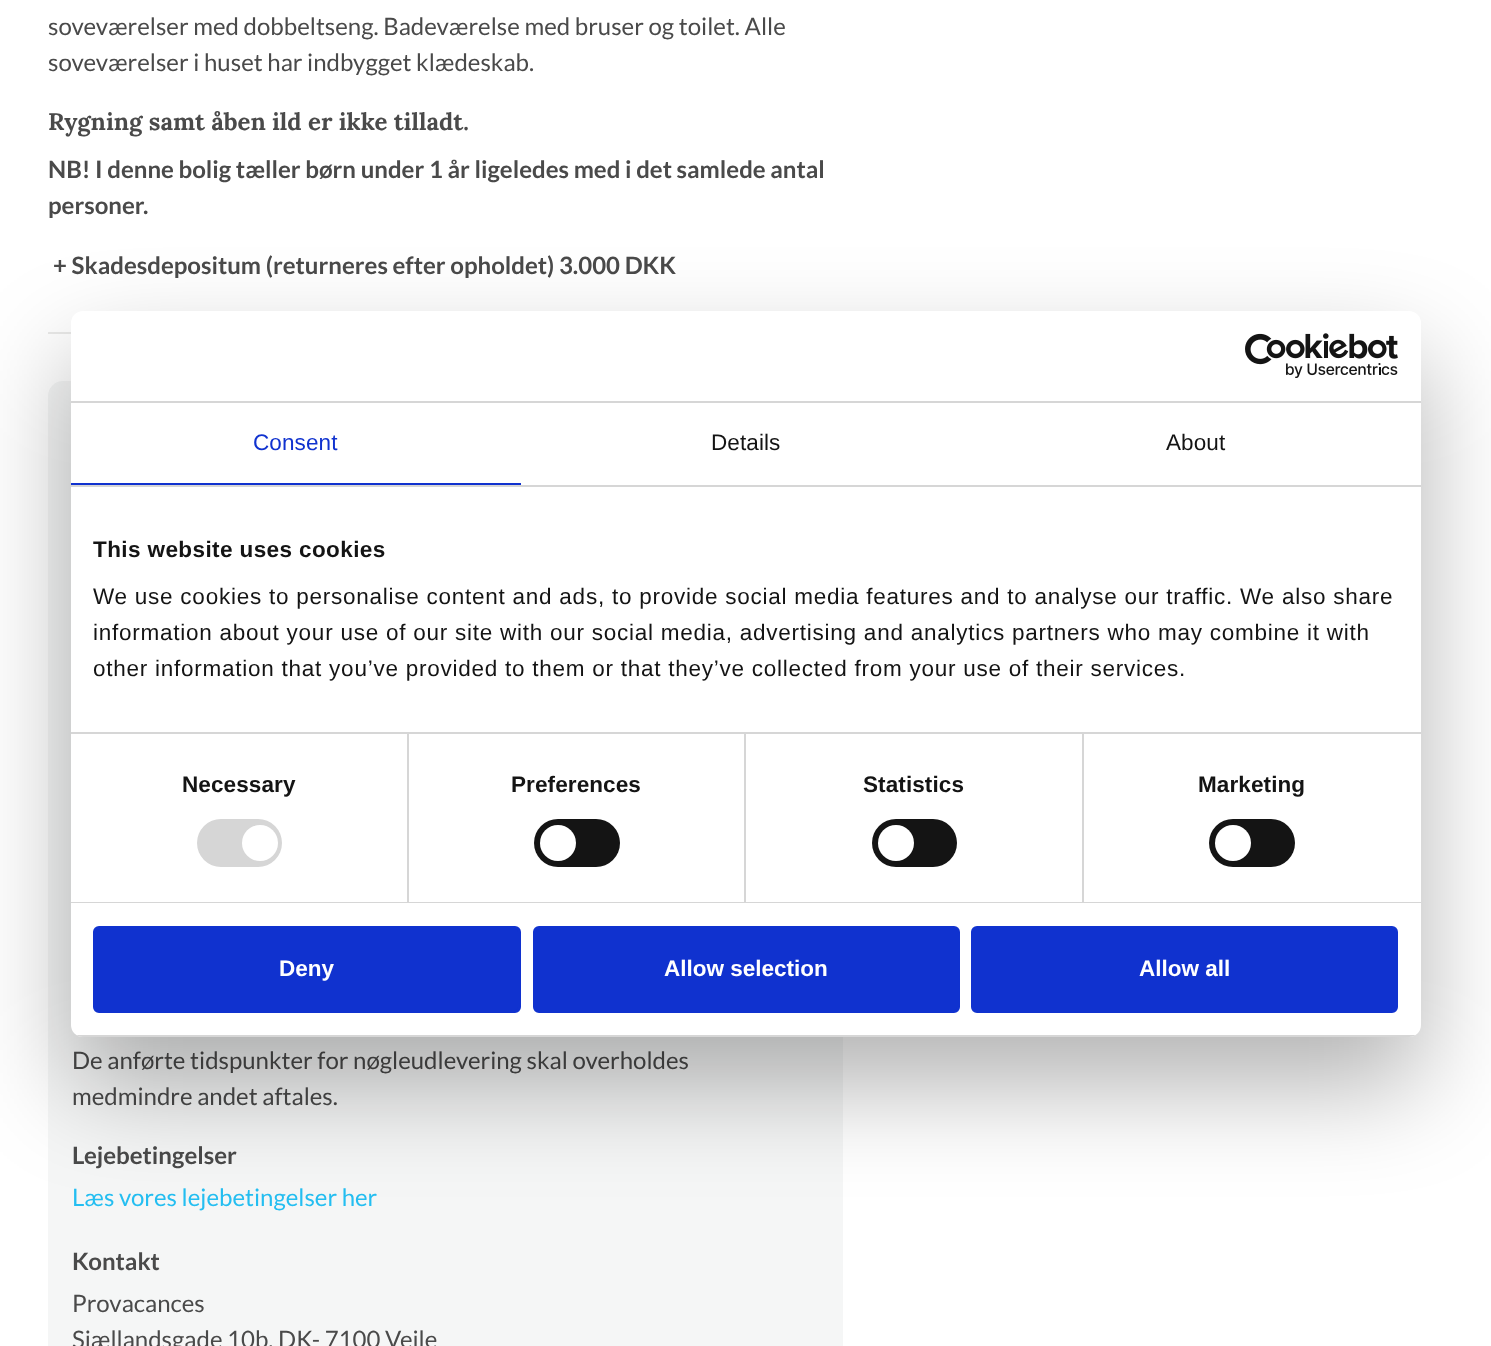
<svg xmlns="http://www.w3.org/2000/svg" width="1491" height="1346">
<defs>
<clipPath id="clip1"><rect x="71" y="311" width="1350" height="726" rx="12"/></clipPath>
</defs>
<rect width="100%" height="100%" fill="#fff"/>
<text x="48" y="35" style="font-family:Lato;font-size:24px;fill:#4a4a4a">soveværelser med dobbeltseng. Badeværelse med bruser og toilet. Alle</text>
<text x="48" y="71" style="font-family:Lato;font-size:24px;fill:#4a4a4a">soveværelser i huset har indbygget klædeskab.</text>
<text x="48" y="130" style="font-family:Lora;font-size:24px;font-weight:bold;fill:#4a4a4a">Rygning samt åben ild er ikke tilladt.</text>
<text x="48" y="178" style="font-family:Lato;font-size:24px;font-weight:bold;fill:#4a4a4a">NB! I denne bolig tæller børn under 1 år ligeledes med i det samlede antal</text>
<text x="48" y="214" style="font-family:Lato;font-size:24px;font-weight:bold;fill:#4a4a4a">personer.</text>
<text x="53" y="274" style="font-family:Lato;font-size:24px;font-weight:bold;fill:#4a4a4a">+ Skadesdepositum (returneres efter opholdet) 3.000 DKK</text>
<rect x="48" y="332" width="23" height="2" fill="#eaeae9"/>
<rect x="48" y="381" width="795" height="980" rx="15" fill="#f5f6f6"/>
<text x="72" y="1069" style="font-family:Lato;font-size:24px;fill:#4a4a4a">De anførte tidspunkter for nøgleudlevering skal overholdes</text>
<text x="72" y="1105" style="font-family:Lato;font-size:24px;fill:#4a4a4a">medmindre andet aftales.</text>
<text x="72" y="1164" style="font-family:Lato;font-size:24px;font-weight:bold;fill:#4a4a4a">Lejebetingelser</text>
<text x="72" y="1206" style="font-family:Lato;font-size:24px;fill:#24bef1">Læs vores lejebetingelser her</text>
<text x="72" y="1270" style="font-family:Lato;font-size:24px;font-weight:bold;fill:#4a4a4a">Kontakt</text>
<text x="72" y="1312" style="font-family:Lato;font-size:24px;fill:#4a4a4a">Provacances</text>
<text x="72" y="1348" style="font-family:Lato;font-size:24px;fill:#4a4a4a">Sjællandsgade 10b, DK- 7100 Vejle</text>
<rect x="71" y="359" width="1350" height="726" rx="12" fill="#0000004d" filter="blur(51px)"/>
<rect x="71" y="311" width="1350" height="726" rx="12" fill="#fff"/>
<rect x="71" y="401" width="1350" height="2" fill="#d6d6d6"/>
<image x="1245" y="333" width="153" height="45" href="media/1.png"/>
<rect x="71" y="485" width="1350" height="2" fill="#d6d6d6"/>
<rect x="71" y="483" width="450" height="2" fill="#1032cf"/>
<text x="253" y="450" style="font-family:Liberation Sans;font-size:22.5px;letter-spacing:0.1px;fill:#1032cf">Consent</text>
<text x="711" y="450" style="font-family:Liberation Sans;font-size:22.5px;letter-spacing:0.1px;fill:#141414">Details</text>
<text x="1166" y="450" style="font-family:Liberation Sans;font-size:22.5px;letter-spacing:0.1px;fill:#141414">About</text>
<rect x="71" y="732" width="1350" height="2" fill="#d6d6d6"/>
<text x="93" y="557" style="font-family:Liberation Sans;font-size:22.5px;font-weight:bold;letter-spacing:0.4px;fill:#141414">This website uses cookies</text>
<text x="93" y="604" style="font-family:Liberation Sans;font-size:22.5px;letter-spacing:0.75px;fill:#141414">We use cookies to personalise content and ads, to provide social media features and to analyse our traffic. We also share</text>
<text x="93" y="640" style="font-family:Liberation Sans;font-size:22.5px;letter-spacing:0.75px;fill:#141414">information about your use of our site with our social media, advertising and analytics partners who may combine it with</text>
<text x="93" y="676" style="font-family:Liberation Sans;font-size:22.5px;letter-spacing:0.75px;fill:#141414">other information that you’ve provided to them or that they’ve collected from your use of their services.</text>
<rect x="71" y="902" width="1350" height="1" fill="#d6d6d6"/>
<rect x="407" y="734" width="2" height="168" fill="#d6d6d6"/>
<text x="182" y="792" style="font-family:Liberation Sans;font-size:22.5px;font-weight:bold;letter-spacing:0.1px;fill:#141414">Necessary</text>
<rect x="197" y="819" width="85" height="48" rx="24" fill="#d6d6d6"/>
<circle cx="260" cy="843" r="18" fill="#fff"/>
<rect x="744" y="734" width="2" height="168" fill="#d6d6d6"/>
<text x="511" y="792" style="font-family:Liberation Sans;font-size:22.5px;font-weight:bold;letter-spacing:0.1px;fill:#141414">Preferences</text>
<rect x="534" y="819" width="86" height="48" rx="24" fill="#141414"/>
<circle cx="558" cy="843" r="18" fill="#fff"/>
<rect x="1082" y="734" width="2" height="168" fill="#d6d6d6"/>
<text x="863" y="792" style="font-family:Liberation Sans;font-size:22.5px;font-weight:bold;letter-spacing:0.1px;fill:#141414">Statistics</text>
<rect x="872" y="819" width="85" height="48" rx="24" fill="#141414"/>
<circle cx="896" cy="843" r="18" fill="#fff"/>
<text x="1198" y="792" style="font-family:Liberation Sans;font-size:22.5px;font-weight:bold;letter-spacing:0.1px;fill:#141414">Marketing</text>
<rect x="1209" y="819" width="86" height="48" rx="24" fill="#141414"/>
<circle cx="1233" cy="843" r="18" fill="#fff"/>
<g clip-path="url(#clip1)">
<rect x="71" y="1035" width="1350" height="2" fill="#d6d6d6"/>
</g>
<rect x="94.5" y="927.5" width="425" height="84" rx="4.5" fill="#1032cf" stroke="#1032cf" stroke-width="3"/>
<text x="279" y="976" style="font-family:Liberation Sans;font-size:22.5px;font-weight:bold;fill:#fff">Deny</text>
<rect x="534.5" y="927.5" width="424" height="84" rx="4.5" fill="#1032cf" stroke="#1032cf" stroke-width="3"/>
<text x="664" y="976" style="font-family:Liberation Sans;font-size:22.5px;font-weight:bold;fill:#fff">Allow selection</text>
<rect x="972.5" y="927.5" width="424" height="84" rx="4.5" fill="#1032cf" stroke="#1032cf" stroke-width="3"/>
<text x="1139" y="976" style="font-family:Liberation Sans;font-size:22.5px;font-weight:bold;fill:#fff">Allow all</text>
</svg>
